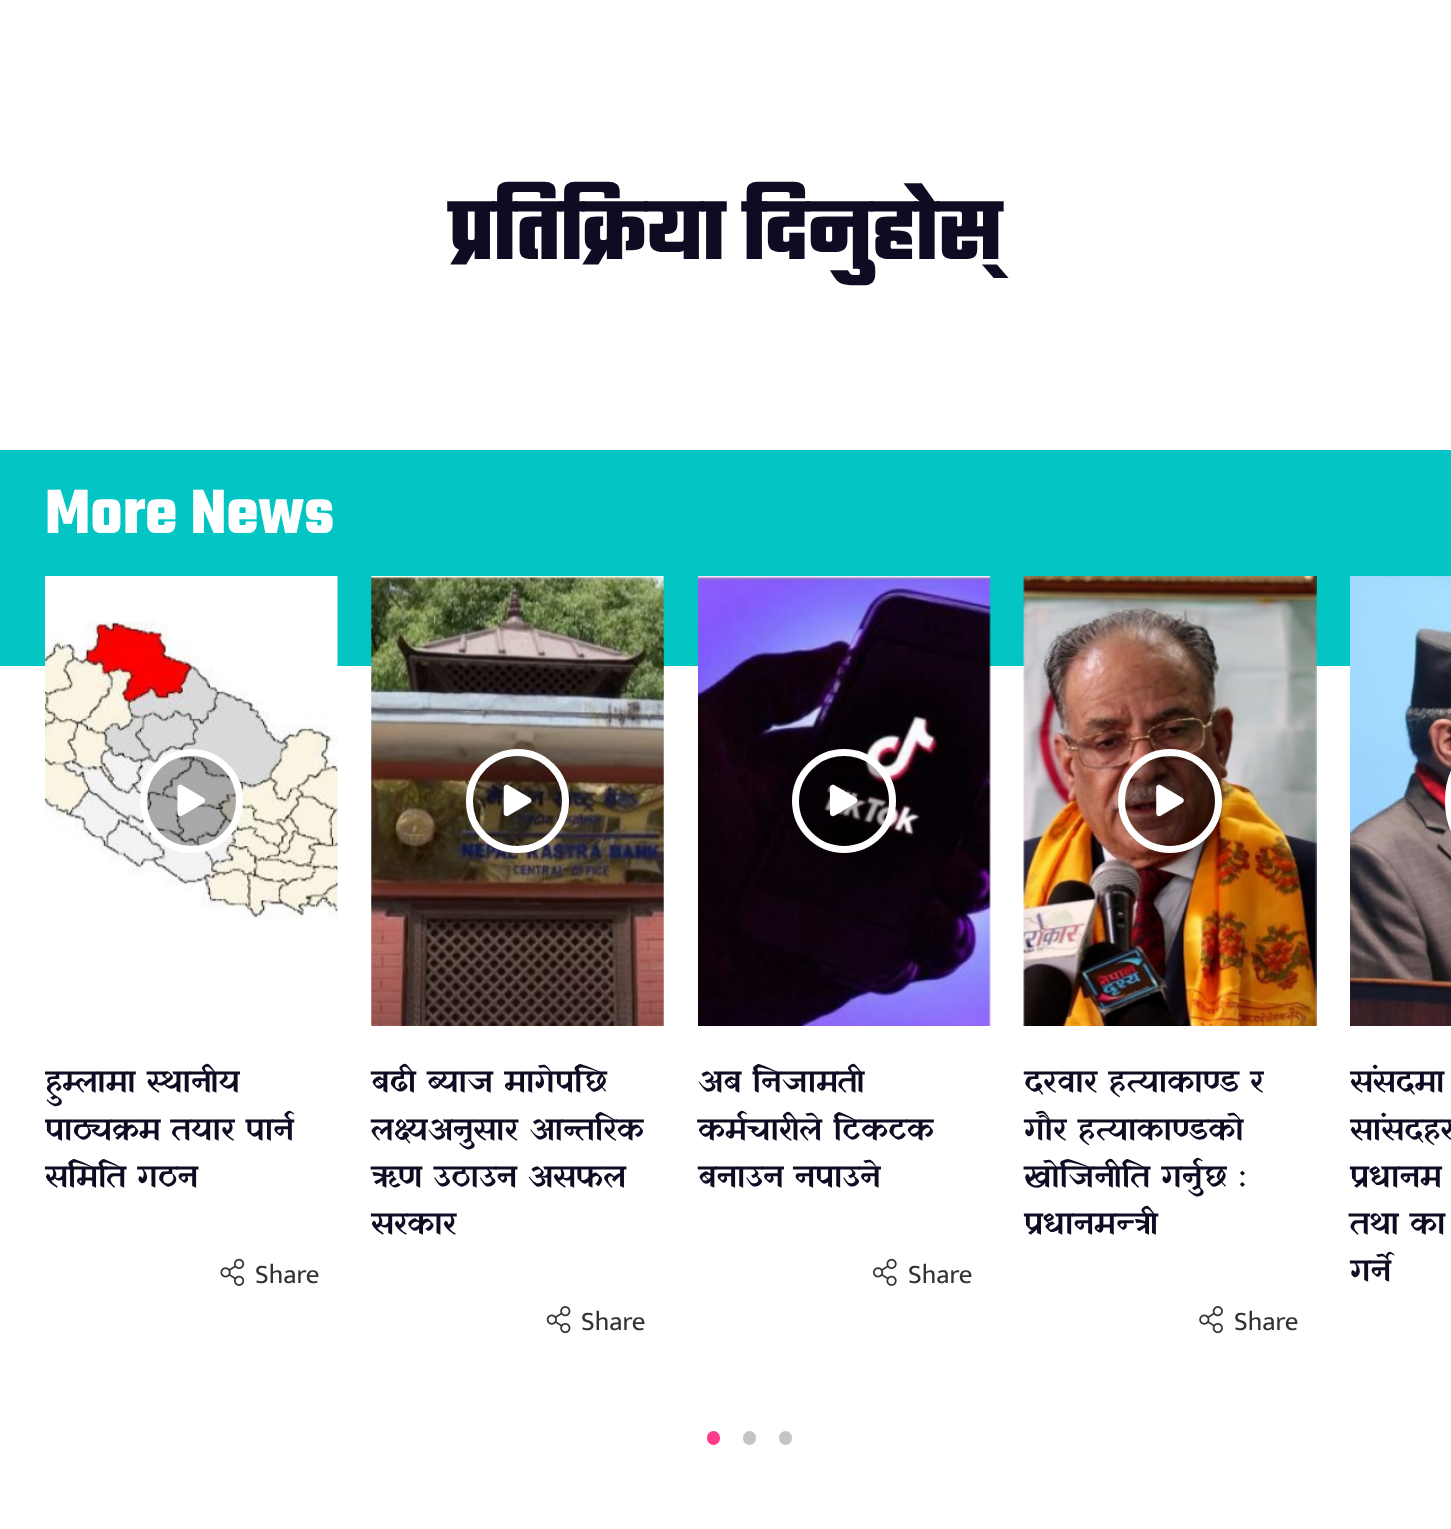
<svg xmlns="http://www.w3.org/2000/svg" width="1451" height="1529">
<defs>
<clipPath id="clip1"><rect x="45" y="576" width="1406" height="833"/></clipPath>
</defs>
<rect width="100%" height="100%" fill="#fff"/>
<text x="449" y="259" style="font-family:Teko;font-size:90px;font-weight:300;fill:#0d0c22">प्रतिक्रिया दिनुहोस्</text>
<rect y="450" width="1451" height="216" fill="#03c5c4"/>
<text x="45" y="533" style="font-family:Teko;font-size:67.5px;font-weight:300;fill:#fff">More News</text>
<image x="45" y="576" width="293" height="343" href="media/1.png"/>
<rect x="143.5" y="752.5" width="96" height="97" rx="48" fill="#0000004d" stroke="#fff" stroke-width="7"/>
<image x="177" y="784" width="28" height="33" href="media/2.png"/>
<g clip-path="url(#clip1)">
<text x="45" y="1091" style="font-family:Yatra One;font-size:31.5px;fill:#0d0c22">हुम्लामा स्थानीय</text>
<text x="45" y="1139" style="font-family:Yatra One;font-size:31.5px;fill:#0d0c22">पाठ्यक्रम तयार पार्न</text>
</g>
<text x="45" y="1186" style="font-family:Yatra One;font-size:31.5px;fill:#0d0c22">समिति गठन</text>
<image x="220" y="1258" width="25" height="28" href="media/3.png"/>
<text x="255" y="1283" style="font-family:Mukta;font-size:27px;fill:#333">Share</text>
<image x="371" y="576" width="293" height="450" href="media/4.png"/>
<rect x="469.5" y="752.5" width="96" height="97" rx="48" fill="#0000004d" stroke="#fff" stroke-width="7"/>
<image x="503" y="784" width="29" height="33" href="media/5.png"/>
<text x="371" y="1091" style="font-family:Yatra One;font-size:31.5px;fill:#0d0c22">बढी ब्याज मागेपछि</text>
<text x="371" y="1139" style="font-family:Yatra One;font-size:31.5px;fill:#0d0c22">लक्ष्यअनुसार आन्तरिक</text>
<text x="371" y="1186" style="font-family:Yatra One;font-size:31.5px;fill:#0d0c22">ऋण उठाउन असफल</text>
<text x="371" y="1233" style="font-family:Yatra One;font-size:31.5px;fill:#0d0c22">सरकार</text>
<image x="546" y="1306" width="25" height="28" href="media/6.png"/>
<text x="581" y="1330" style="font-family:Mukta;font-size:27px;fill:#333">Share</text>
<image x="698" y="576" width="293" height="450" href="media/7.png"/>
<circle cx="844" cy="801" r="48.5" fill="#0000004d" stroke="#fff" stroke-width="7"/>
<image x="829" y="784" width="29" height="33" href="media/8.png"/>
<text x="698" y="1091" style="font-family:Yatra One;font-size:31.5px;fill:#0d0c22">अब निजामती</text>
<text x="698" y="1139" style="font-family:Yatra One;font-size:31.5px;fill:#0d0c22">कर्मचारीले टिकटक</text>
<text x="698" y="1186" style="font-family:Yatra One;font-size:31.5px;fill:#0d0c22">बनाउन नपाउने</text>
<image x="873" y="1258" width="24" height="28" href="media/9.png"/>
<text x="908" y="1283" style="font-family:Mukta;font-size:27px;fill:#333">Share</text>
<image x="1023" y="576" width="294" height="450" href="media/10.png"/>
<circle cx="1170" cy="801" r="48.5" fill="#0000004d" stroke="#fff" stroke-width="7"/>
<image x="1156" y="784" width="28" height="33" href="media/11.png"/>
<text x="1024" y="1091" style="font-family:Yatra One;font-size:31.5px;fill:#0d0c22">दरवार हत्याकाण्ड र</text>
<text x="1024" y="1139" style="font-family:Yatra One;font-size:31.5px;fill:#0d0c22">गौर हत्याकाण्डको</text>
<text x="1024" y="1186" style="font-family:Yatra One;font-size:31.5px;fill:#0d0c22">खोजिनीति गर्नुछ :</text>
<text x="1024" y="1233" style="font-family:Yatra One;font-size:31.5px;fill:#0d0c22">प्रधानमन्त्री</text>
<image x="1199" y="1306" width="24" height="28" href="media/12.png"/>
<text x="1234" y="1330" style="font-family:Mukta;font-size:27px;fill:#333">Share</text>
<image x="1350" y="576" width="101" height="450" href="media/13.png"/>
<rect x="1448.5" y="752.5" width="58" height="97" rx="48" fill="none" stroke="#fff" stroke-width="7"/>
<text x="1350" y="1091" style="font-family:Yatra One;font-size:31.5px;fill:#0d0c22">संसदमा</text>
<text x="1350" y="1139" style="font-family:Yatra One;font-size:31.5px;fill:#0d0c22">सांसदहर</text>
<text x="1350" y="1186" style="font-family:Yatra One;font-size:31.5px;fill:#0d0c22">प्रधानम</text>
<text x="1350" y="1233" style="font-family:Yatra One;font-size:31.5px;fill:#0d0c22">तथा का</text>
<text x="1350" y="1280" style="font-family:Yatra One;font-size:31.5px;fill:#0d0c22">गर्ने</text>
<rect x="707" y="1431" width="13" height="14" rx="6.5" fill="#ff3a8a"/>
<rect x="743" y="1431" width="13" height="14" rx="6.5" fill="#c4c4c4"/>
<rect x="779" y="1431" width="13" height="14" rx="6.5" fill="#c4c4c4"/>
</svg>
